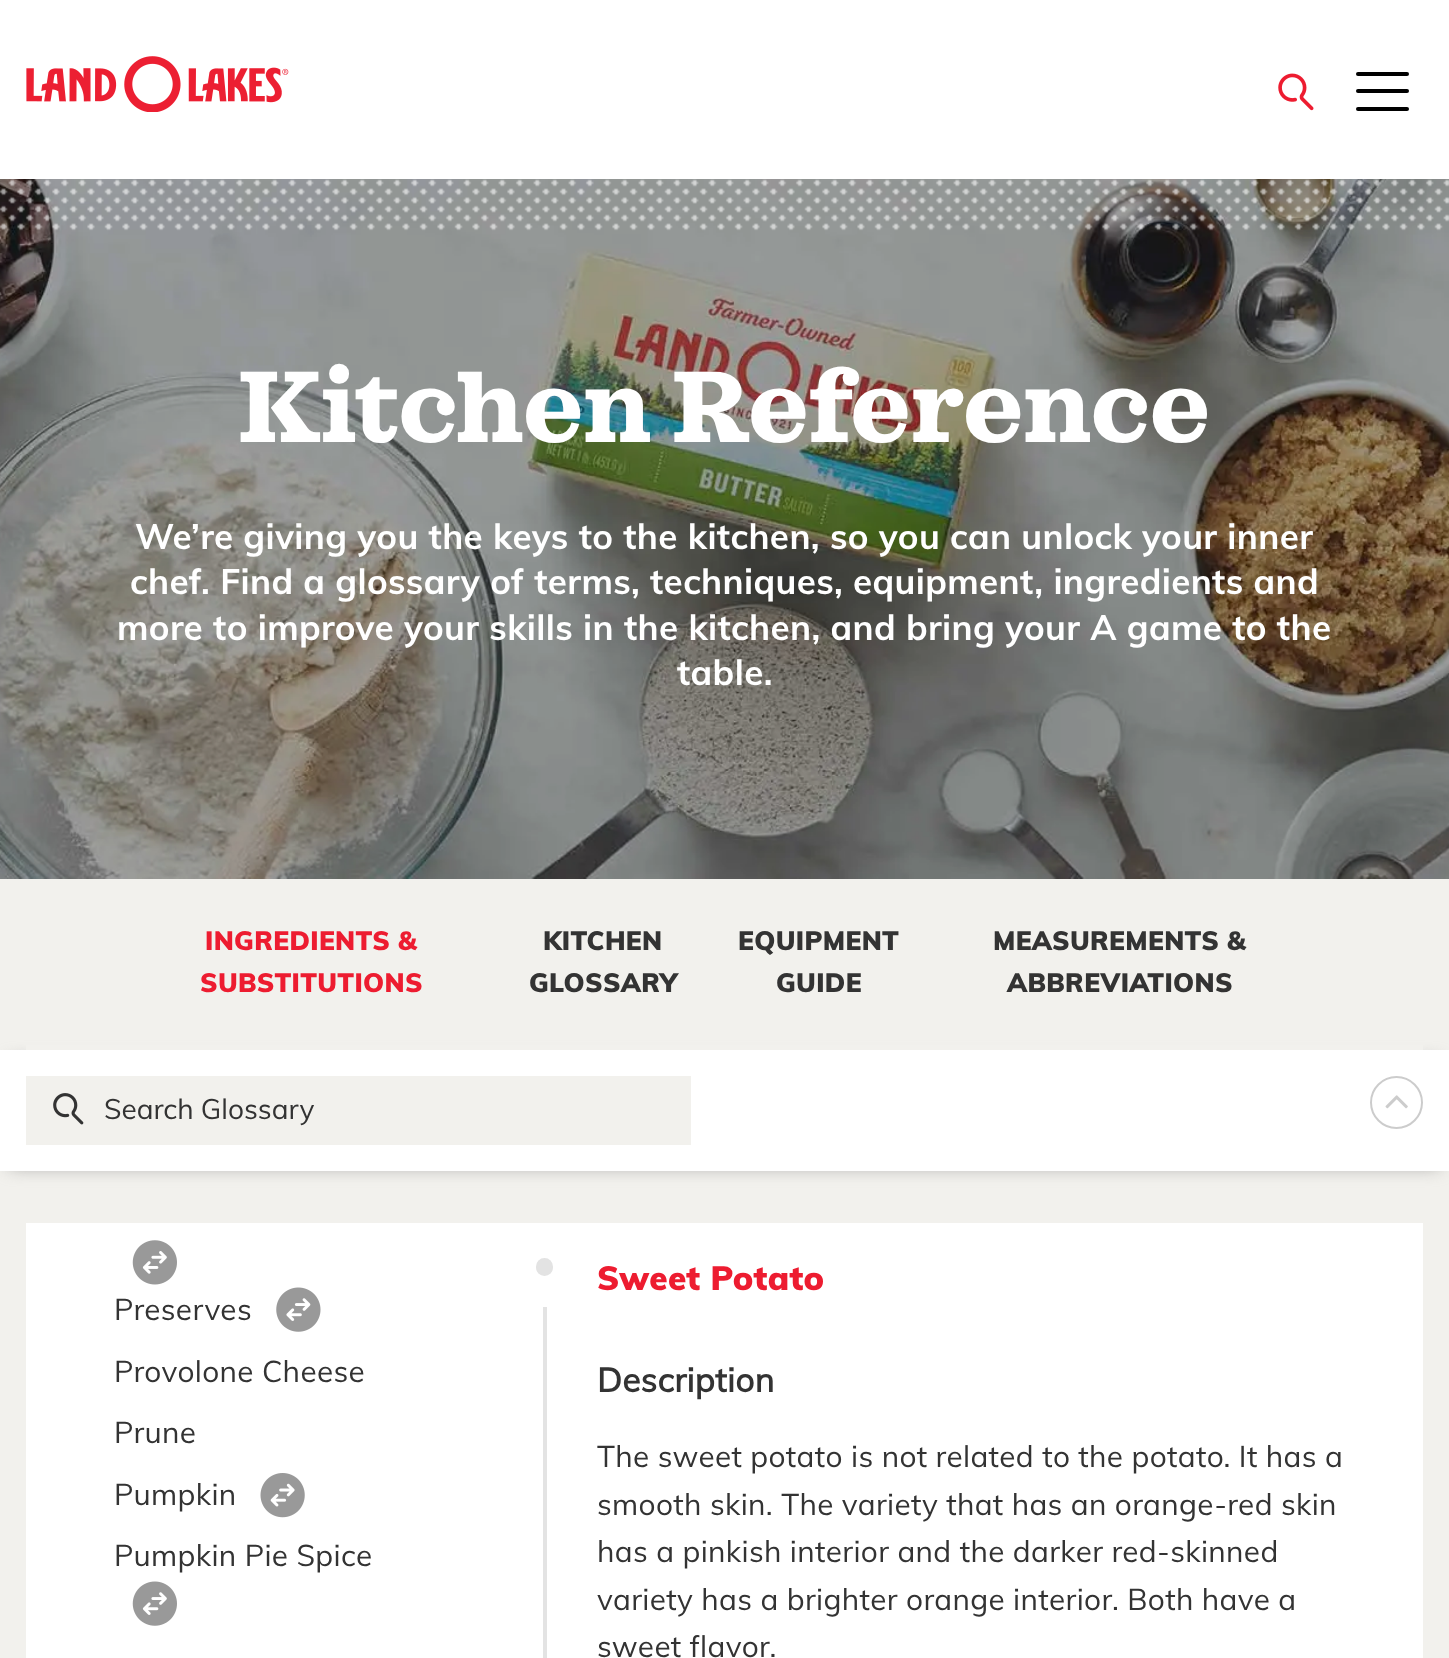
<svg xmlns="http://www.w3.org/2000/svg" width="1449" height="1658">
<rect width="100%" height="100%" fill="#f2f1ed"/>
<rect width="1449" height="179" fill="#fff"/>
<image x="26" y="56" width="263" height="56" href="media/1.png"/>
<image x="1278" y="73" width="36" height="38" href="media/2.png"/>
<rect x="1356" y="72" width="53" height="4" rx="2" fill="#000"/>
<rect x="1356" y="89" width="53" height="4" rx="2" fill="#000"/>
<rect x="1356" y="107" width="53" height="4" rx="2" fill="#000"/>
<image x="0" y="179" width="1449" height="700" href="media/3.png"/>
<image x="0" y="179" width="1449" height="52" href="media/4.png"/>
<text x="238" y="442" style="font-family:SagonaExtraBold;font-size:103.25px;letter-spacing:0.35px;fill:#fff">Kitchen Reference</text>
<text x="135" y="549" style="font-family:'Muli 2';font-size:35px;font-weight:bold;letter-spacing:0.35px;fill:#fff">We’re giving you the keys to the kitchen, so you can unlock your inner</text>
<text x="130" y="594" style="font-family:'Muli 2';font-size:35px;font-weight:bold;letter-spacing:0.35px;fill:#fff">chef. Find a glossary of terms, techniques, equipment, ingredients and</text>
<text x="117" y="640" style="font-family:'Muli 2';font-size:35px;font-weight:bold;letter-spacing:0.35px;fill:#fff">more to improve your skills in the kitchen, and bring your A game to the</text>
<text x="677" y="685" style="font-family:'Muli 2';font-size:35px;font-weight:bold;letter-spacing:0.35px;fill:#fff">table.</text>
<rect x="9" y="1062" width="1431" height="104" fill="#999" filter="blur(9px)"/>
<rect x="26" y="1045" width="1397" height="5" fill="#f2f1ed"/>
<text x="205" y="950" style="font-family:Muli;font-size:26.25px;font-weight:900;letter-spacing:0.35px;fill:#ed1c30">INGREDIENTS &amp;</text>
<text x="200" y="992" style="font-family:Muli;font-size:26.25px;font-weight:900;letter-spacing:0.35px;fill:#ed1c30">SUBSTITUTIONS</text>
<text x="543" y="950" style="font-family:Muli;font-size:26.25px;font-weight:900;letter-spacing:0.35px;fill:#333">KITCHEN</text>
<text x="529" y="992" style="font-family:Muli;font-size:26.25px;font-weight:900;letter-spacing:0.35px;fill:#333">GLOSSARY</text>
<text x="738" y="950" style="font-family:Muli;font-size:26.25px;font-weight:900;letter-spacing:0.35px;fill:#333">EQUIPMENT</text>
<text x="776" y="992" style="font-family:Muli;font-size:26.25px;font-weight:900;letter-spacing:0.35px;fill:#333">GUIDE</text>
<text x="993" y="950" style="font-family:Muli;font-size:26.25px;font-weight:900;letter-spacing:0.35px;fill:#333">MEASUREMENTS &amp;</text>
<text x="1007" y="992" style="font-family:Muli;font-size:26.25px;font-weight:900;letter-spacing:0.35px;fill:#333">ABBREVIATIONS</text>
<rect y="1050" width="1449" height="121" fill="#fff"/>
<rect x="26" y="1076" width="665" height="69" fill="#f2f1ed"/>
<image x="53" y="1093" width="31" height="32" href="media/5.png"/>
<text x="104" y="1119" style="font-family:Muli;font-size:28px;fill:#333">Search Glossary</text>
<circle cx="1396.5" cy="1102.5" r="25.5" fill="none" stroke="#ccc" stroke-width="2"/>
<image x="1385" y="1095" width="23" height="14" href="media/6.png"/>
<rect x="26" y="1223" width="1397" height="435" fill="#fff"/>
<image x="132" y="1240" width="45" height="45" href="media/7.png"/>
<text x="114" y="1320" style="font-family:Muli;font-size:29.75px;letter-spacing:0.35px;fill:#333">Preserves</text>
<image x="276" y="1287" width="45" height="45" href="media/8.png"/>
<text x="114" y="1382" style="font-family:Muli;font-size:29.75px;letter-spacing:0.35px;fill:#333">Provolone Cheese</text>
<text x="114" y="1443" style="font-family:Muli;font-size:29.75px;letter-spacing:0.35px;fill:#333">Prune</text>
<text x="114" y="1505" style="font-family:Muli;font-size:29.75px;letter-spacing:0.35px;fill:#333">Pumpkin</text>
<image x="260" y="1473" width="45" height="45" href="media/9.png"/>
<text x="114" y="1566" style="font-family:Muli;font-size:29.75px;letter-spacing:0.35px;fill:#333">Pumpkin Pie Spice</text>
<image x="132" y="1581" width="45" height="45" href="media/10.png"/>
<rect x="536" y="1258" width="17" height="18" rx="8.5" fill="#e3e3e3"/>
<text x="597" y="1290" style="font-family:Muli;font-size:33.25px;font-weight:900;letter-spacing:0.35px;fill:#ed1c30">Sweet Potato</text>
<rect x="543" y="1307" width="4" height="351" fill="#e3e3e3"/>
<text x="597" y="1392" style="font-family:Muli;font-size:33.25px;font-weight:bold;letter-spacing:0.35px;fill:#333">Description</text>
<text x="597" y="1467" style="font-family:Muli;font-size:29.75px;letter-spacing:0.35px;fill:#333">The sweet potato is not related to the potato. It has a</text>
<text x="597" y="1515" style="font-family:Muli;font-size:29.75px;letter-spacing:0.35px;fill:#333">smooth skin. The variety that has an orange-red skin</text>
<text x="597" y="1562" style="font-family:Muli;font-size:29.75px;letter-spacing:0.35px;fill:#333">has a pinkish interior and the darker red-skinned</text>
<text x="597" y="1610" style="font-family:Muli;font-size:29.75px;letter-spacing:0.35px;fill:#333">variety has a brighter orange interior. Both have a</text>
<text x="597" y="1657" style="font-family:Muli;font-size:29.75px;letter-spacing:0.35px;fill:#333">sweet flavor.</text>
</svg>
